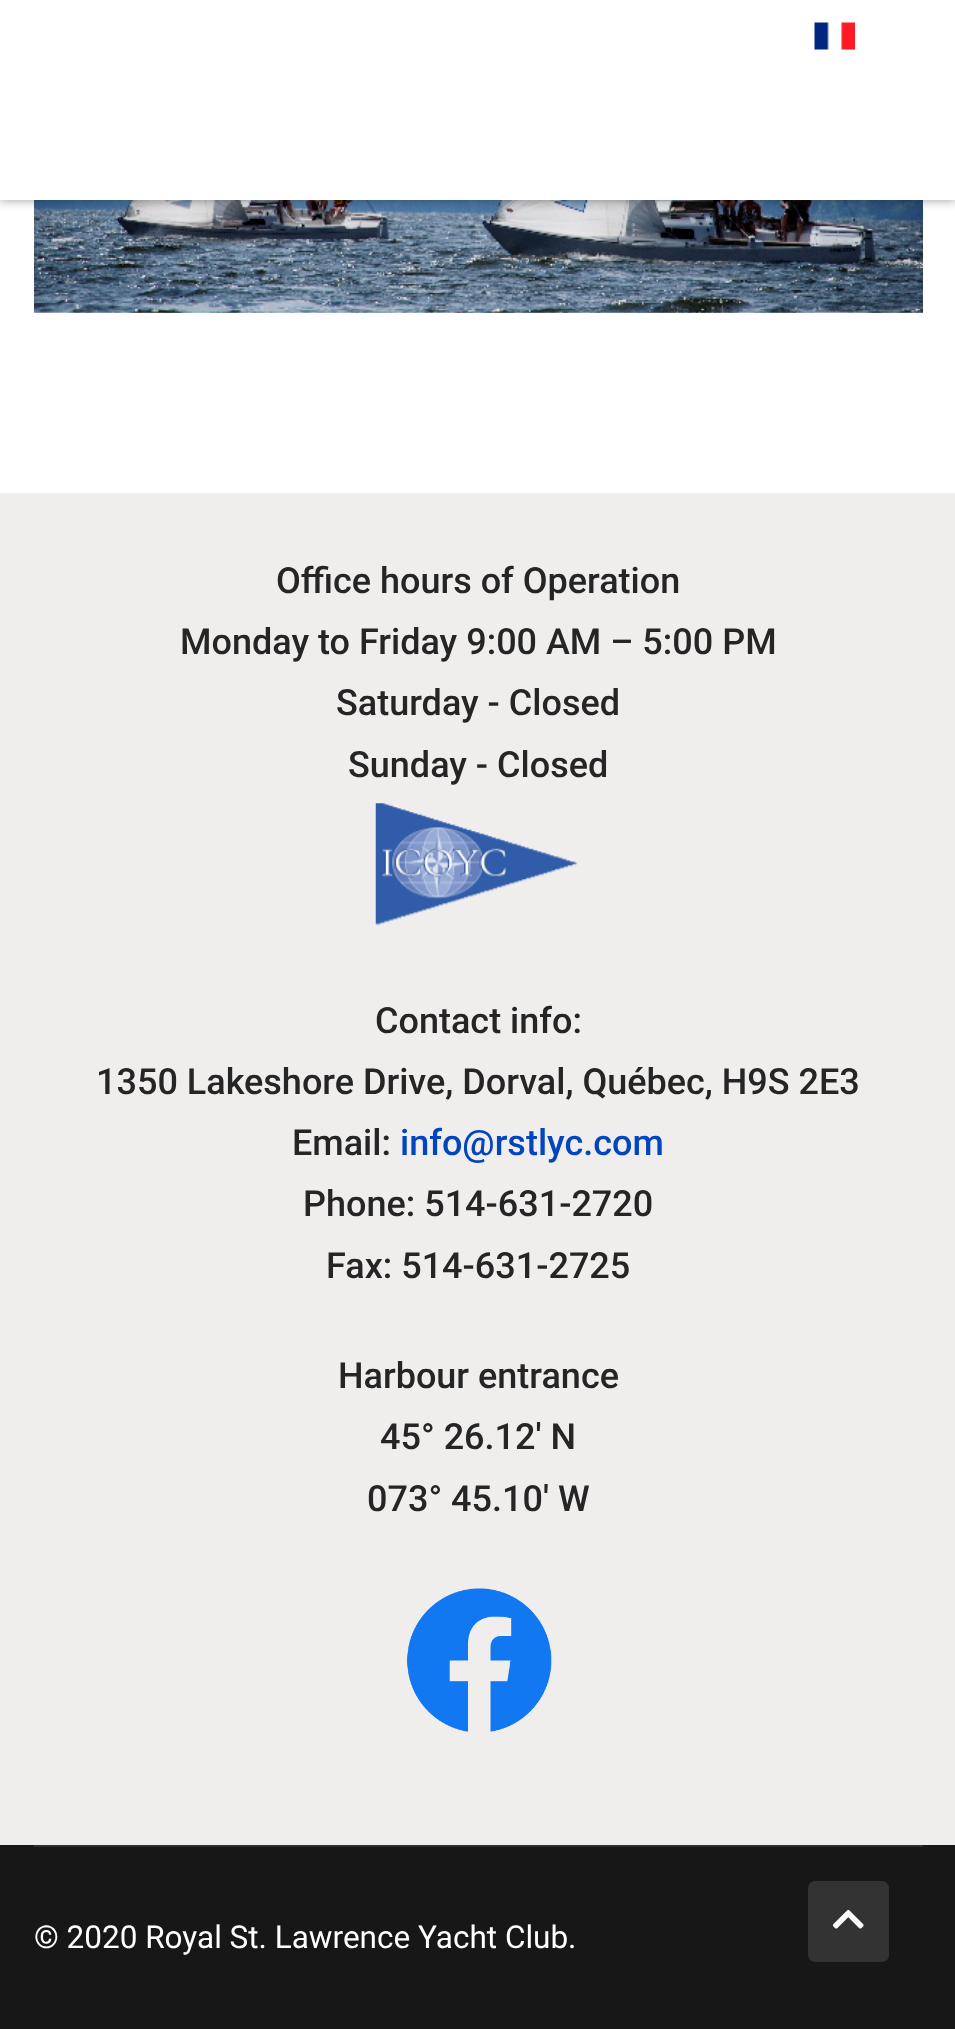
<svg xmlns="http://www.w3.org/2000/svg" width="955" height="2029">
<rect width="100%" height="100%" fill="#fff"/>
<image x="34" y="200" width="889" height="113" href="media/2.png"/>
<rect width="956" height="200" fill="#00000066" filter="blur(5.5px)"/>
<rect width="955" height="200" fill="#fff"/>
<image x="814" y="22" width="41" height="28" href="media/1.png"/>
<rect y="493" width="955" height="1352" fill="#f0eded"/>
<text x="276" y="593" style="font-family:Roboto;font-size:36px;font-weight:500;fill:#252525">Office hours of Operation</text>
<text x="180" y="654" style="font-family:Roboto;font-size:36px;font-weight:500;fill:#252525">Monday to Friday 9:00 AM – 5:00 PM</text>
<text x="336" y="715" style="font-family:Roboto;font-size:36px;font-weight:500;fill:#252525">Saturday - Closed</text>
<text x="348" y="777" style="font-family:Roboto;font-size:36px;font-weight:500;fill:#252525">Sunday - Closed</text>
<image x="375" y="803" width="202" height="122" href="media/3.png"/>
<text x="375" y="1033" style="font-family:Roboto;font-size:36px;font-weight:500;fill:#252525">Contact info:</text>
<text x="96" y="1094" style="font-family:Roboto;font-size:36px;font-weight:500;fill:#252525">1350 Lakeshore Drive, Dorval, Québec, H9S 2E3</text>
<text x="292" y="1155" style="font-family:Roboto;font-size:36px;font-weight:500;fill:#252525">Email:</text>
<text x="400" y="1155" style="font-family:Roboto;font-size:36px;font-weight:500;fill:#0345bf">info@rstlyc.com</text>
<text x="303" y="1216" style="font-family:Roboto;font-size:36px;font-weight:500;fill:#252525">Phone: 514-631-2720</text>
<text x="326" y="1278" style="font-family:Roboto;font-size:36px;font-weight:500;fill:#252525">Fax: 514-631-2725</text>
<text x="338" y="1388" style="font-family:Roboto;font-size:36px;font-weight:500;fill:#252525">Harbour entrance</text>
<text x="380" y="1449" style="font-family:Roboto;font-size:36px;font-weight:500;fill:#252525">45° 26.12' N</text>
<text x="367" y="1511" style="font-family:Roboto;font-size:36px;font-weight:500;fill:#252525">073° 45.10' W</text>
<image x="407" y="1588" width="145" height="144" href="media/4.png"/>
<rect y="1845" width="955" height="184" fill="#171717"/>
<rect x="34" y="1845" width="889" height="2" fill="#2e2e2e"/>
<text x="34" y="1948" style="font-family:Roboto;font-size:31.5px;fill:#fff">© 2020 Royal St. Lawrence Yacht Club.</text>
<rect x="808" y="1881" width="81" height="81" rx="7" fill="#333"/>
<image x="832" y="1909" width="32" height="20" href="media/5.png"/>
</svg>
